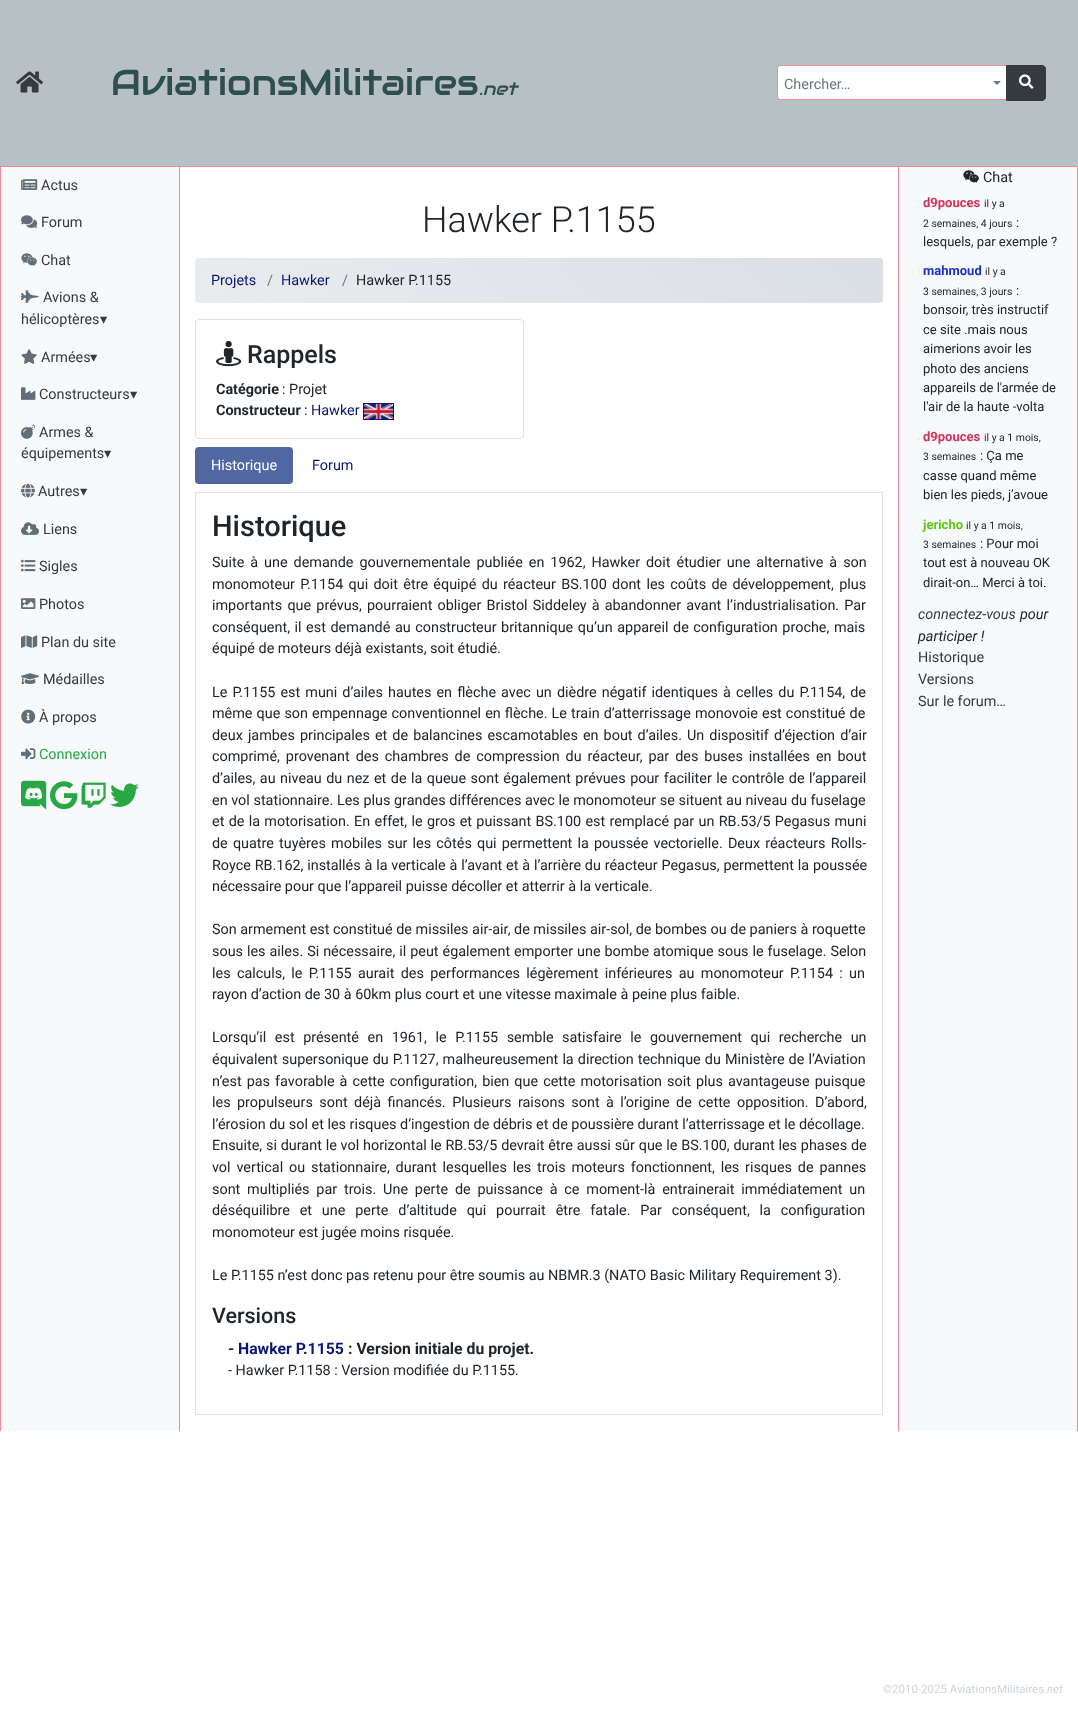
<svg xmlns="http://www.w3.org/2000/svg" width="1078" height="1714">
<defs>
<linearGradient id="g1" gradientUnits="userSpaceOnUse" x1="356" y1="464" x2="722" y2="97"><stop offset="0" stop-color="#e9ecef"/><stop offset="1" stop-color="#dadfe4"/></linearGradient>
</defs>
<rect width="100%" height="100%" fill="#fff"/>
<rect width="1078" height="166" fill="#b7c0c4"/>
<rect y="166" width="1078" height="1" fill="#eb8c95"/>
<image x="16" y="71" width="27" height="22" href="media/1.png"/>
<text x="111" y="95" style="font-family:Audiowide;font-size:36px;fill:#2f4f4f">AviationsMilitaires</text>
<text x="479" y="95" style="font-family:Audiowide;font-size:18px;font-style:italic;fill:#2f4f4f">.net</text>
<path d="M781 65.5h225.5v34h-225.5c-2 0-3.5-1.5-3.5-3.5v-27c0-2 1.5-3.5 3.5-3.5z" fill="#fff" stroke="#eb8c95"/>
<text x="784" y="89" style="font-family:Roboto;font-size:14.4px;fill:#6c757d">Chercher…</text>
<path d="M993 81h8l-4 4z" fill="#6c757d"/>
<path d="M1006.5 65.5h35.5c2 0 3.5 1.5 3.5 3.5v28c0 2-1.5 3.5-3.5 3.5h-35.5z" fill="#343a40" stroke="#343a40"/>
<image x="1019" y="74" width="15" height="15" href="media/2.png"/>
<rect x="1" y="167" width="178" height="1264" fill="#f8f9fa"/>
<rect x="179" y="167" width="1" height="1264" fill="#eb8c95"/>
<rect y="167" width="1" height="1264" fill="#eb8c95"/>
<image x="21" y="179" width="17" height="11" href="media/3.png"/>
<text x="41" y="190" style="font-family:Roboto;font-size:14.4px;fill:#343a40">Actus</text>
<image x="21" y="215" width="17" height="13" href="media/4.png"/>
<text x="41" y="227" style="font-family:Roboto;font-size:14.4px;fill:#343a40">Forum</text>
<image x="21" y="253" width="16" height="13" href="media/5.png"/>
<text x="41" y="265" style="font-family:Roboto;font-size:14.4px;fill:#343a40">Chat</text>
<image x="21" y="290" width="18" height="13" href="media/6.png"/>
<text x="43" y="302" style="font-family:Roboto;font-size:14.4px;fill:#343a40">Avions &amp;</text>
<text x="21" y="324" style="font-family:Roboto;font-size:14.4px;fill:#343a40">hélicoptères</text>
<text x="100" y="324" style="font-family:DejaVu Sans;font-size:14.4px;fill:#343a40">▾</text>
<image x="21" y="349" width="16" height="15" href="media/7.png"/>
<text x="41" y="362" style="font-family:Roboto;font-size:14.4px;fill:#343a40">Armées</text>
<text x="90" y="362" style="font-family:DejaVu Sans;font-size:14.4px;fill:#343a40">▾</text>
<image x="21" y="387" width="15" height="13" href="media/8.png"/>
<text x="39" y="399" style="font-family:Roboto;font-size:14.4px;fill:#343a40">Constructeurs</text>
<text x="130" y="399" style="font-family:DejaVu Sans;font-size:14.4px;fill:#343a40">▾</text>
<image x="21" y="424" width="15" height="15" href="media/9.png"/>
<text x="39" y="437" style="font-family:Roboto;font-size:14.4px;fill:#343a40">Armes &amp;</text>
<text x="21" y="458" style="font-family:Roboto;font-size:14.4px;fill:#343a40">équipements</text>
<text x="104" y="458" style="font-family:DejaVu Sans;font-size:14.4px;fill:#343a40">▾</text>
<image x="21" y="483" width="14" height="15" href="media/10.png"/>
<text x="38" y="496" style="font-family:Roboto;font-size:14.4px;fill:#343a40">Autres</text>
<text x="80" y="496" style="font-family:DejaVu Sans;font-size:14.4px;fill:#343a40">▾</text>
<image x="21" y="522" width="18" height="13" href="media/11.png"/>
<text x="43" y="534" style="font-family:Roboto;font-size:14.4px;fill:#343a40">Liens</text>
<image x="21" y="559" width="15" height="13" href="media/12.png"/>
<text x="39" y="571" style="font-family:Roboto;font-size:14.4px;fill:#343a40">Sigles</text>
<image x="21" y="598" width="15" height="11" href="media/13.png"/>
<text x="39" y="609" style="font-family:Roboto;font-size:14.4px;fill:#343a40">Photos</text>
<image x="21" y="635" width="17" height="13" href="media/14.png"/>
<text x="41" y="647" style="font-family:Roboto;font-size:14.4px;fill:#343a40">Plan du site</text>
<image x="21" y="673" width="18" height="11" href="media/15.png"/>
<text x="43" y="684" style="font-family:Roboto;font-size:14.4px;fill:#343a40">Médailles</text>
<image x="21" y="709" width="15" height="15" href="media/16.png"/>
<text x="39" y="722" style="font-family:Roboto;font-size:14.4px;fill:#343a40">À propos</text>
<image x="21" y="748" width="15" height="12" href="media/17.png"/>
<text x="39" y="759" style="font-family:Roboto;font-size:14.4px;fill:#28a745">Connexion</text>
<image x="21" y="780" width="26" height="30" href="media/18.png"/>
<image x="50" y="781" width="28" height="29" href="media/19.png"/>
<image x="81" y="782" width="25" height="26" href="media/20.png"/>
<image x="110" y="783" width="29" height="24" href="media/21.png"/>
<text x="422" y="232" style="font-family:Roboto;font-size:36px;font-weight:300;fill:#212529">Hawker P.1155</text>
<rect x="195" y="258" width="688" height="45" rx="4" fill="url(#g1)"/>
<text x="211" y="285" style="font-family:Roboto;font-size:14.4px;fill:#0c1673">Projets</text>
<text x="267" y="285" style="font-family:Roboto;font-size:14.4px;fill:#6c757d">/</text>
<text x="281" y="285" style="font-family:Roboto;font-size:14.4px;fill:#0c1673">Hawker</text>
<text x="342" y="285" style="font-family:Roboto;font-size:14.4px;fill:#6c757d">/</text>
<text x="356" y="285" style="font-family:Roboto;font-size:14.4px;fill:#212529">Hawker P.1155</text>
<rect x="195.5" y="319.5" width="328" height="119" rx="3.5" fill="none" stroke="#dfdfdf"/>
<image x="216" y="341" width="26" height="26" href="media/22.png"/>
<text x="247" y="363" style="font-family:Roboto;font-size:25px;font-weight:500;fill:#212529">Rappels</text>
<text x="216" y="394" style="font-family:Roboto;font-size:14.4px;font-weight:bold;fill:#212529">Catégorie</text>
<text x="282" y="394" style="font-family:Roboto;font-size:14.4px;fill:#212529">: Projet</text>
<text x="216" y="415" style="font-family:Roboto;font-size:14.4px;font-weight:bold;fill:#212529">Constructeur</text>
<text x="311" y="415" style="font-family:Roboto;font-size:14.4px;fill:#0c1673">Hawker</text>
<rect x="363.5" y="403.5" width="30" height="16" fill="none" stroke="#0c1673"/>
<text x="304" y="415" style="font-family:Roboto;font-size:14.4px;fill:#212529">:</text>
<image x="364" y="404" width="29" height="15" href="media/23.png"/>
<rect x="195" y="447" width="98" height="37" rx="4" fill="#5167a1"/>
<text x="211" y="470" style="font-family:Roboto;font-size:14.4px;fill:#fff">Historique</text>
<text x="312" y="470" style="font-family:Roboto;font-size:14.4px;fill:#0c1673">Forum</text>
<rect x="195.5" y="492.5" width="687" height="922" fill="none" stroke="#dee2e6"/>
<text x="212" y="536" style="font-family:Roboto;font-size:29px;font-weight:500;fill:#212529">Historique</text>
<text x="212" y="567" word-spacing="2.4" style="font-family:Roboto;font-size:14.4px;fill:#212529">Suite à une demande gouvernementale publiée en 1962, Hawker doit étudier une alternative à son</text>
<text x="212" y="589" word-spacing="1.75" style="font-family:Roboto;font-size:14.4px;fill:#212529">monomoteur P.1154 qui doit être équipé du réacteur BS.100 dont les coûts de développement, plus</text>
<text x="212" y="610" word-spacing="1.6" style="font-family:Roboto;font-size:14.4px;fill:#212529">importants que prévus, pourraient obliger Bristol Siddeley à abandonner avant l’industrialisation. Par</text>
<text x="212" y="632" word-spacing="1" style="font-family:Roboto;font-size:14.4px;fill:#212529">conséquent, il est demandé au constructeur britannique qu’un appareil de configuration proche, mais</text>
<text x="212" y="653" style="font-family:Roboto;font-size:14.4px;fill:#212529">équipé de moteurs déjà existants, soit étudié.</text>
<text x="212" y="697" word-spacing="1.5" style="font-family:Roboto;font-size:14.4px;fill:#212529">Le P.1155 est muni d’ailes hautes en flèche avec un dièdre négatif identiques à celles du P.1154, de</text>
<text x="212" y="718" word-spacing="0.5" style="font-family:Roboto;font-size:14.4px;fill:#212529">même que son empennage conventionnel en flèche. Le train d’atterrissage monovoie est constitué de</text>
<text x="212" y="740" word-spacing="1.5" style="font-family:Roboto;font-size:14.4px;fill:#212529">deux jambes principales et de balancines escamotables en bout d’ailes. Un dispositif d’éjection d’air</text>
<text x="212" y="761" word-spacing="2.4" style="font-family:Roboto;font-size:14.4px;fill:#212529">comprimé, provenant des chambres de compression du réacteur, par des buses installées en bout</text>
<text x="212" y="783" word-spacing="0.9" style="font-family:Roboto;font-size:14.4px;fill:#212529">d’ailes, au niveau du nez et de la queue sont également prévues pour faciliter le contrôle de l’appareil</text>
<text x="212" y="805" word-spacing="0.1" style="font-family:Roboto;font-size:14.4px;fill:#212529">en vol stationnaire. Les plus grandes différences avec le monomoteur se situent au niveau du fuselage</text>
<text x="212" y="826" word-spacing="0.75" style="font-family:Roboto;font-size:14.4px;fill:#212529">et de la motorisation. En effet, le gros et puissant BS.100 est remplacé par un RB.53/5 Pegasus muni</text>
<text x="212" y="848" word-spacing="1.6" style="font-family:Roboto;font-size:14.4px;fill:#212529">de quatre tuyères mobiles sur les côtés qui permettent la poussée vectorielle. Deux réacteurs Rolls-</text>
<text x="212" y="870" word-spacing="0.25" style="font-family:Roboto;font-size:14.4px;fill:#212529">Royce RB.162, installés à la verticale à l’avant et à l’arrière du réacteur Pegasus, permettent la poussée</text>
<text x="212" y="891" style="font-family:Roboto;font-size:14.4px;fill:#212529">nécessaire pour que l’appareil puisse décoller et atterrir à la verticale.</text>
<text x="212" y="934" style="font-family:Roboto;font-size:14.4px;fill:#212529">Son armement est constitué de missiles air-air, de missiles air-sol, de bombes ou de paniers à roquette</text>
<text x="212" y="956" word-spacing="0.4" style="font-family:Roboto;font-size:14.4px;fill:#212529">sous les ailes. Si nécessaire, il peut également emporter une bombe atomique sous le fuselage. Selon</text>
<text x="212" y="978" word-spacing="2.75" style="font-family:Roboto;font-size:14.4px;fill:#212529">les calculs, le P.1155 aurait des performances légèrement inférieures au monomoteur P.1154 : un</text>
<text x="212" y="999" style="font-family:Roboto;font-size:14.4px;fill:#212529">rayon d’action de 30 à 60km plus court et une vitesse maximale à peine plus faible.</text>
<text x="212" y="1042" word-spacing="5" style="font-family:Roboto;font-size:14.4px;fill:#212529">Lorsqu’il est présenté en 1961, le P.1155 semble satisfaire le gouvernement qui recherche un</text>
<text x="212" y="1064" word-spacing="0.5" style="font-family:Roboto;font-size:14.4px;fill:#212529">équivalent supersonique du P.1127, malheureusement la direction technique du Ministère de l’Aviation</text>
<text x="212" y="1086" word-spacing="1.5" style="font-family:Roboto;font-size:14.4px;fill:#212529">n’est pas favorable à cette configuration, bien que cette motorisation soit plus avantageuse puisque</text>
<text x="212" y="1107" word-spacing="2.9" style="font-family:Roboto;font-size:14.4px;fill:#212529">les propulseurs sont déjà financés. Plusieurs raisons sont à l’origine de cette opposition. D’abord,</text>
<text x="212" y="1129" style="font-family:Roboto;font-size:14.4px;fill:#212529">l’érosion du sol et les risques d’ingestion de débris et de poussière durant l’atterrissage et le décollage.</text>
<text x="212" y="1150" word-spacing="0.25" style="font-family:Roboto;font-size:14.4px;fill:#212529">Ensuite, si durant le vol horizontal le RB.53/5 devrait être aussi sûr que le BS.100, durant les phases de</text>
<text x="212" y="1172" word-spacing="2.25" style="font-family:Roboto;font-size:14.4px;fill:#212529">vol vertical ou stationnaire, durant lesquelles les trois moteurs fonctionnent, les risques de pannes</text>
<text x="212" y="1194" word-spacing="3.25" style="font-family:Roboto;font-size:14.4px;fill:#212529">sont multipliés par trois. Une perte de puissance à ce moment-là entrainerait immédiatement un</text>
<text x="212" y="1215" word-spacing="6.25" style="font-family:Roboto;font-size:14.4px;fill:#212529">déséquilibre et une perte d’altitude qui pourrait être fatale. Par conséquent, la configuration</text>
<text x="212" y="1237" style="font-family:Roboto;font-size:14.4px;fill:#212529">monomoteur est jugée moins risquée.</text>
<text x="212" y="1280" style="font-family:Roboto;font-size:14.4px;fill:#212529">Le P.1155 n’est donc pas retenu pour être soumis au NBMR.3 (NATO Basic Military Requirement 3).</text>
<text x="212" y="1323" style="font-family:Roboto;font-size:21.5px;font-weight:500;fill:#212529">Versions</text>
<text x="228" y="1354" style="font-family:Roboto;font-size:15.8px;font-weight:bold;fill:#212529">-</text>
<text x="238" y="1354" style="font-family:Roboto;font-size:15.8px;font-weight:bold;fill:#0c1673">Hawker P.1155</text>
<text x="348" y="1354" style="font-family:Roboto;font-size:15.8px;font-weight:bold;fill:#212529">: Version initiale du projet.</text>
<text x="228" y="1375" style="font-family:Roboto;font-size:14.4px;fill:#212529">- Hawker P.1158 : Version modifiée du P.1155.</text>
<rect x="899" y="167" width="178" height="1264" fill="#f8f9fa"/>
<rect x="1077" y="167" width="1" height="1264" fill="#eb8c95"/>
<rect x="898" y="167" width="1" height="1264" fill="#eb8c95"/>
<image x="963" y="170" width="16" height="13" href="media/24.png"/>
<text x="983" y="182" style="font-family:Roboto;font-size:14.4px;fill:#212529">Chat</text>
<text x="923" y="207" style="font-family:Roboto;font-size:13px;font-weight:bold;fill:#d1335b">d9pouces</text>
<text x="984" y="207" style="font-family:Roboto;font-size:10.4px;fill:#212529">il y a</text>
<text x="923" y="227" style="font-family:Roboto;font-size:10.4px;fill:#212529">2 semaines, 4 jours</text>
<text x="1016" y="227" style="font-family:Roboto;font-size:13px;fill:#212529">:</text>
<text x="923" y="246" style="font-family:Roboto;font-size:13px;fill:#212529">lesquels, par exemple ?</text>
<text x="923" y="275" style="font-family:Roboto;font-size:13px;font-weight:bold;fill:#1b33c4">mahmoud</text>
<text x="985" y="275" style="font-family:Roboto;font-size:10.4px;fill:#212529">il y a</text>
<text x="923" y="295" style="font-family:Roboto;font-size:10.4px;fill:#212529">3 semaines, 3 jours</text>
<text x="1016" y="295" style="font-family:Roboto;font-size:13px;fill:#212529">:</text>
<text x="923" y="314" style="font-family:Roboto;font-size:13px;fill:#212529">bonsoir, très instructif</text>
<text x="923" y="334" style="font-family:Roboto;font-size:13px;fill:#212529">ce site .mais nous</text>
<text x="923" y="353" style="font-family:Roboto;font-size:13px;fill:#212529">aimerions avoir les</text>
<text x="923" y="373" style="font-family:Roboto;font-size:13px;fill:#212529">photo des anciens</text>
<text x="923" y="392" style="font-family:Roboto;font-size:13px;fill:#212529">appareils de l'armée de</text>
<text x="923" y="411" style="font-family:Roboto;font-size:13px;fill:#212529">l'air de la haute -volta</text>
<text x="923" y="441" style="font-family:Roboto;font-size:13px;font-weight:bold;fill:#d1335b">d9pouces</text>
<text x="984" y="441" style="font-family:Roboto;font-size:10.4px;fill:#212529">il y a 1 mois,</text>
<text x="923" y="460" style="font-family:Roboto;font-size:10.4px;fill:#212529">3 semaines</text>
<text x="980" y="460" style="font-family:Roboto;font-size:13px;fill:#212529">: Ça me</text>
<text x="923" y="480" style="font-family:Roboto;font-size:13px;fill:#212529">casse quand même</text>
<text x="923" y="499" style="font-family:Roboto;font-size:13px;fill:#212529">bien les pieds, j’avoue</text>
<text x="923" y="529" style="font-family:Roboto;font-size:13px;font-weight:bold;fill:#60c41b">jericho</text>
<text x="966" y="529" style="font-family:Roboto;font-size:10.4px;fill:#212529">il y a 1 mois,</text>
<text x="923" y="548" style="font-family:Roboto;font-size:10.4px;fill:#212529">3 semaines</text>
<text x="980" y="548" style="font-family:Roboto;font-size:13px;fill:#212529">: Pour moi</text>
<text x="923" y="567" style="font-family:Roboto;font-size:13px;fill:#212529">tout est à nouveau OK</text>
<text x="923" y="587" style="font-family:Roboto;font-size:13px;fill:#212529">dirait-on… Merci à toi.</text>
<text x="918" y="619" style="font-family:Roboto;font-size:14.4px;font-style:italic;fill:#343a40">connectez-vous</text>
<text x="1020" y="619" style="font-family:Roboto;font-size:14.4px;font-style:italic;fill:#212529">pour</text>
<text x="918" y="641" style="font-family:Roboto;font-size:14.4px;font-style:italic;fill:#212529">participer !</text>
<text x="918" y="662" style="font-family:Roboto;font-size:14.4px;fill:#343a40">Historique</text>
<text x="918" y="684" style="font-family:Roboto;font-size:14.4px;fill:#343a40">Versions</text>
<text x="918" y="706" style="font-family:Roboto;font-size:14.4px;fill:#343a40">Sur le forum…</text>
<text x="883" y="1693" style="font-family:Roboto;font-size:11.5px;fill:#ced4da">©2010-2025 AviationsMilitaires</text>
<text x="1044" y="1693" style="font-family:Roboto;font-size:11.5px;font-style:italic;fill:#ced4da">.net</text>
</svg>
